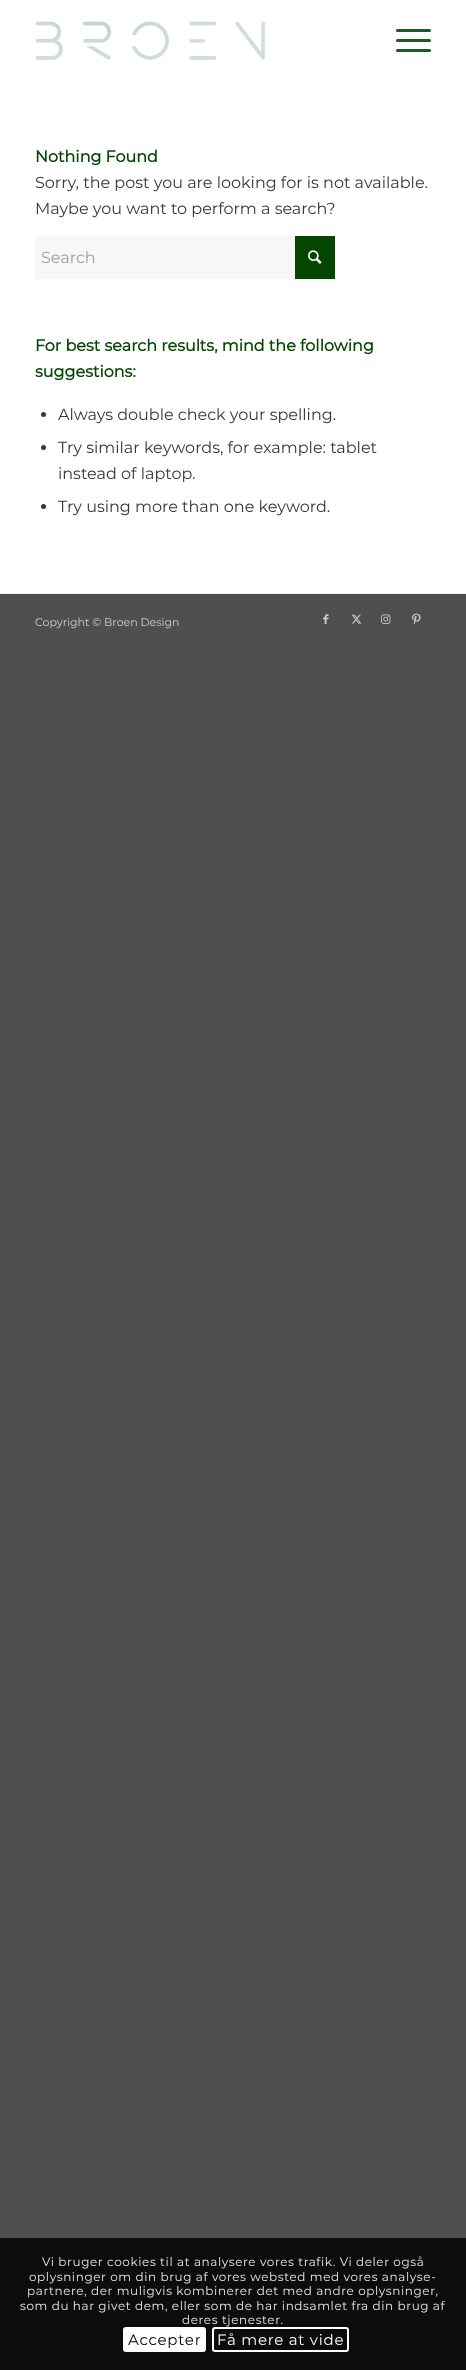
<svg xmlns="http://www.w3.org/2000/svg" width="466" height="2370">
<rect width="100%" height="100%" fill="#4f4f4f"/>
<rect width="466" height="593" fill="#fff"/>
<image x="35" y="21" width="231" height="39" href="media/1.png"/>
<rect x="396" y="39" width="35" height="3" rx="1.5" fill="#19592a"/>
<rect x="396" y="29" width="35" height="3" rx="1.5" fill="#19592a"/>
<rect x="396" y="49" width="35" height="3" rx="1.5" fill="#19592a"/>
<text x="35" y="162" style="font-family:Montserrat;font-size:16px;font-weight:bold;fill:#054701">Nothing Found</text>
<text x="35" y="188" style="font-family:Montserrat;font-size:16px;font-weight:100;fill:#383838">Sorry, the post you are looking for is not available.</text>
<text x="35" y="214" style="font-family:Montserrat;font-size:16px;font-weight:100;fill:#383838">Maybe you want to perform a search?</text>
<rect x="35" y="236" width="260" height="43" fill="#f7f7f7"/>
<text x="41" y="263" style="font-family:Montserrat;font-size:16px;font-weight:100;fill:#9f9f9f">Search</text>
<rect x="295" y="236" width="40" height="43" fill="#054701"/>
<image x="308" y="250" width="14" height="14" href="media/2.png"/>
<text x="35" y="351" style="font-family:Montserrat;font-size:16px;font-weight:bold;fill:#054701">For best search results, mind the following</text>
<text x="35" y="377" style="font-family:Montserrat;font-size:16px;font-weight:bold;fill:#054701">suggestions:</text>
<circle cx="43.5" cy="414.5" r="2.5" fill="#383838"/>
<text x="58" y="420" style="font-family:Montserrat;font-size:16px;font-weight:100;fill:#383838">Always double check your spelling.</text>
<circle cx="43.5" cy="447.5" r="2.5" fill="#383838"/>
<text x="58" y="453" style="font-family:Montserrat;font-size:16px;font-weight:100;fill:#383838">Try similar keywords, for example: tablet</text>
<text x="58" y="479" style="font-family:Montserrat;font-size:16px;font-weight:100;fill:#383838">instead of laptop.</text>
<circle cx="43.5" cy="506.5" r="2.5" fill="#383838"/>
<text x="58" y="512" style="font-family:Montserrat;font-size:16px;font-weight:100;fill:#383838">Try using more than one keyword.</text>
<rect y="593" width="466" height="1" fill="#f4f4f4"/>
<text x="35" y="626" style="font-family:Montserrat;font-size:11px;font-weight:100;fill:#ccc">Copyright © Broen Design</text>
<image x="323" y="614" width="6" height="11" href="media/3.png"/>
<image x="351" y="614" width="11" height="10" href="media/4.png"/>
<image x="381" y="614" width="10" height="10" href="media/5.png"/>
<image x="412" y="613" width="9" height="12" href="media/6.png"/>
<rect y="2238" width="466" height="132" fill="#0c0c0c"/>
<text x="42" y="2266" style="font-family:Montserrat;font-size:12px;font-weight:100;letter-spacing:0.6px;fill:#e7e7e7">Vi bruger cookies til at analysere vores trafik. Vi deler også</text>
<text x="29" y="2281" style="font-family:Montserrat;font-size:12px;font-weight:100;letter-spacing:0.6px;fill:#e7e7e7">oplysninger om din brug af vores websted med vores analyse-</text>
<text x="27" y="2295" style="font-family:Montserrat;font-size:12px;font-weight:100;letter-spacing:0.6px;fill:#e7e7e7">partnere, der muligvis kombinerer det med andre oplysninger,</text>
<text x="20" y="2310" style="font-family:Montserrat;font-size:12px;font-weight:100;letter-spacing:0.6px;fill:#e7e7e7">som du har givet dem, eller som de har indsamlet fra din brug af</text>
<text x="182" y="2324" style="font-family:Montserrat;font-size:12px;font-weight:100;letter-spacing:0.6px;fill:#e7e7e7">deres tjenester.</text>
<rect x="123" y="2327" width="83" height="25" rx="3" fill="#fff"/>
<text x="128" y="2345" style="font-family:Montserrat;font-size:15px;font-weight:100;letter-spacing:0.75px;fill:#000">Accepter</text>
<rect x="213" y="2328" width="135" height="23" rx="2" fill="none" stroke="#fff" stroke-width="2"/>
<text x="217" y="2345" style="font-family:Montserrat;font-size:15px;font-weight:100;letter-spacing:0.75px;fill:#fff">Få mere at vide</text>
</svg>
